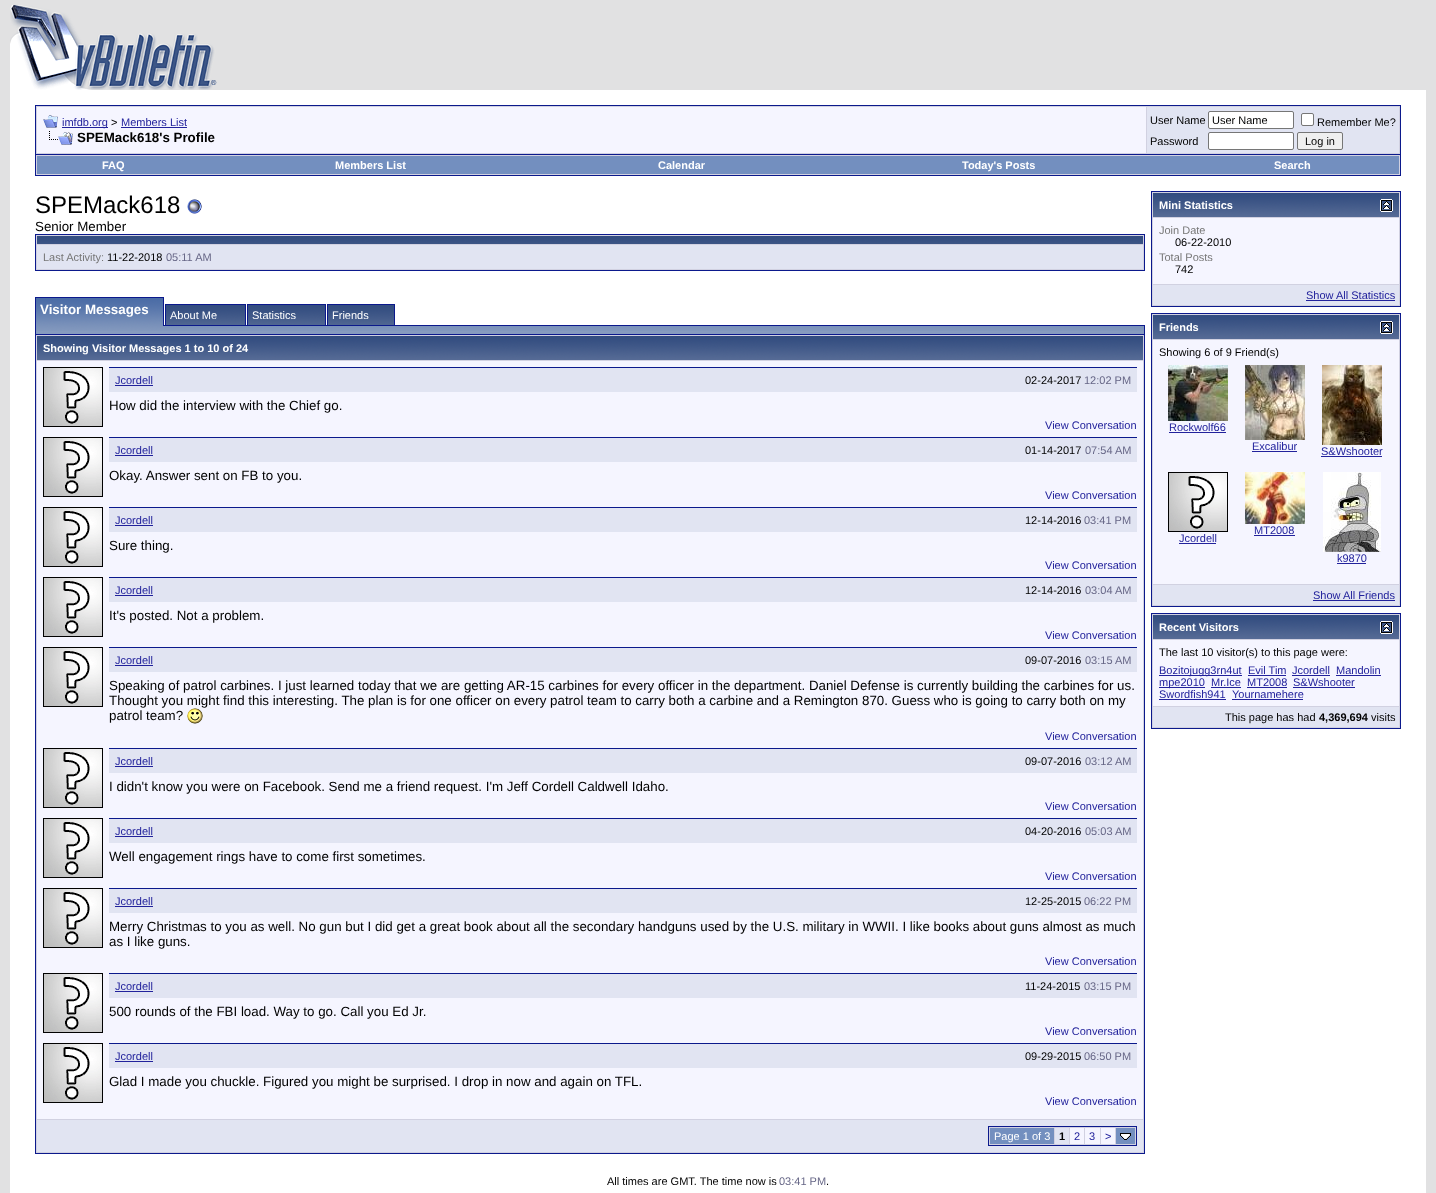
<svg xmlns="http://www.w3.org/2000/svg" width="1436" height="1193">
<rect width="100%" height="100%" fill="#e1e1e2"/>
<image x="10" y="5" width="207" height="85" href="media/1.png"/>
<rect x="10" y="90" width="1416" height="1103" fill="#fff"/>
<rect x="35.5" y="105.5" width="1365" height="49" fill="#d1d1e1" stroke="#0b198c"/>
<rect x="37" y="107" width="1109" height="46" fill="#f5f5ff"/>
<image x="43" y="115" width="15" height="13" href="media/2.png"/>
<rect x="62" y="127" width="46" height="1" fill="#22229c"/>
<text x="62" y="126" style="font-family:Liberation Sans;font-size:11px;fill:#22229c">imfdb.org</text>
<text x="111" y="126" style="font-family:Liberation Sans;font-size:11px;fill:#000">&gt;</text>
<text x="121" y="126" style="font-family:Liberation Sans;font-size:11px;fill:#22229c">Members List</text>
<rect x="121" y="127" width="66" height="1" fill="#22229c"/>
<image x="49" y="131" width="24" height="14" href="media/3.png"/>
<text x="77" y="142" style="font-family:Liberation Sans;font-size:13.33px;font-weight:bold;fill:#000">SPEMack618's Profile</text>
<rect x="1147" y="107" width="252" height="46" fill="#e1e4f2"/>
<text x="1150" y="124" style="font-family:Liberation Sans;font-size:11px;fill:#000">User Name</text>
<rect x="1208.5" y="111.5" width="85" height="17" rx="1.5" fill="#fff" stroke="#767676"/>
<text x="1212" y="124" style="font-family:Liberation Sans;font-size:11px;fill:#000">User Name</text>
<rect x="1301.5" y="113.5" width="12" height="12" rx="1.5" fill="#fff" stroke="#767676"/>
<text x="1317" y="126" style="font-family:Liberation Sans;font-size:11px;fill:#000">Remember Me?</text>
<text x="1150" y="145" style="font-family:Liberation Sans;font-size:11px;fill:#000">Password</text>
<rect x="1208.5" y="132.5" width="85" height="17" rx="1.5" fill="#fff" stroke="#767676"/>
<rect x="1297.5" y="132.5" width="45" height="17" rx="1.5" fill="#efefef" stroke="#767676"/>
<text x="1305" y="145" style="font-family:Liberation Sans;font-size:11px;fill:#000">Log in</text>
<rect x="36" y="155" width="1364" height="20" fill="#d1d1e1"/>
<rect x="1400" y="155" width="1" height="21" fill="#0b198c"/>
<rect x="35" y="175" width="1366" height="1" fill="#0b198c"/>
<rect x="35" y="155" width="1" height="21" fill="#0b198c"/>
<rect x="37" y="156" width="1362" height="18" fill="#738fbf"/>
<text x="102" y="169" style="font-family:Liberation Sans;font-size:11px;font-weight:bold;fill:#fff">FAQ</text>
<text x="335" y="169" style="font-family:Liberation Sans;font-size:11px;font-weight:bold;fill:#fff">Members List</text>
<text x="658" y="169" style="font-family:Liberation Sans;font-size:11px;font-weight:bold;fill:#fff">Calendar</text>
<text x="962" y="169" style="font-family:Liberation Sans;font-size:11px;font-weight:bold;fill:#fff">Today's Posts</text>
<text x="1274" y="169" style="font-family:Liberation Sans;font-size:11px;font-weight:bold;fill:#fff">Search</text>
<text x="35" y="213" style="font-family:Liberation Sans;font-size:24px;fill:#000">SPEMack618</text>
<image x="187" y="199" width="15" height="15" href="media/4.png"/>
<text x="35" y="231" style="font-family:Liberation Sans;font-size:13.33px;fill:#000">Senior Member</text>
<rect x="35.5" y="234.5" width="1109" height="36" fill="#d1d1e1" stroke="#0b198c"/>
<image x="37" y="236" width="1106" height="8" href="media/5.png"/>
<rect x="37" y="245" width="1106" height="24" fill="#e1e4f2"/>
<text x="43" y="261" style="font-family:Liberation Sans;font-size:11px;fill:#777">Last Activity:</text>
<text x="107" y="261" style="font-family:Liberation Sans;font-size:11px;fill:#000">11-22-2018</text>
<text x="166" y="261" style="font-family:Liberation Sans;font-size:11px;fill:#666686">05:11 AM</text>
<image x="36" y="298" width="127" height="28" href="media/6.png"/>
<rect x="35" y="297" width="129" height="1" fill="#0b198c"/>
<rect x="163" y="297" width="1" height="29" fill="#0b198c"/>
<rect x="35" y="325" width="1" height="9" fill="#0b198c"/>
<rect x="35" y="297" width="1" height="29" fill="#0b198c"/>
<text x="40" y="314" style="font-family:Liberation Sans;font-size:13.33px;font-weight:bold;fill:#fff">Visitor Messages</text>
<image x="166" y="305" width="79" height="20" href="media/7.png"/>
<rect x="164" y="325" width="981" height="1" fill="#0b198c"/>
<rect x="165.5" y="304.5" width="80" height="21" fill="none" stroke="#0b198c"/>
<text x="170" y="319" style="font-family:Liberation Sans;font-size:11px;fill:#fff">About Me</text>
<image x="248" y="305" width="77" height="20" href="media/8.png"/>
<rect x="247.5" y="304.5" width="78" height="21" fill="none" stroke="#0b198c"/>
<text x="252" y="319" style="font-family:Liberation Sans;font-size:11px;fill:#fff">Statistics</text>
<image x="328" y="305" width="66" height="20" href="media/9.png"/>
<rect x="327.5" y="304.5" width="67" height="21" fill="none" stroke="#0b198c"/>
<text x="332" y="319" style="font-family:Liberation Sans;font-size:11px;fill:#fff">Friends</text>
<rect x="36" y="331" width="1108" height="3" fill="#869bbf"/>
<image x="36" y="326" width="1108" height="5" href="media/10.png"/>
<rect x="1144" y="325" width="1" height="9" fill="#0b198c"/>
<rect x="35.5" y="334.5" width="1109" height="819" fill="#d1d1e1" stroke="#0b198c"/>
<image x="37" y="336" width="1106" height="24" href="media/11.png"/>
<text x="43" y="352" style="font-family:Liberation Sans;font-size:11px;font-weight:bold;fill:#fff">Showing Visitor Messages 1 to 10 of 24</text>
<rect x="37" y="361" width="1106" height="758" fill="#f5f5ff"/>
<image x="43" y="367" width="60" height="60" href="media/12.png"/>
<rect x="109" y="367" width="1028" height="1" fill="#0b198c"/>
<rect x="109" y="368" width="1028" height="24" fill="#e1e4f2"/>
<text x="115" y="384" style="font-family:Liberation Sans;font-size:11px;fill:#22229c">Jcordell</text>
<rect x="115" y="385" width="38" height="1" fill="#22229c"/>
<text x="1025" y="384" style="font-family:Liberation Sans;font-size:11px;fill:#000">02-24-2017</text>
<text x="1084" y="384" style="font-family:Liberation Sans;font-size:11px;fill:#666686">12:02 PM</text>
<text x="109" y="410" style="font-family:Liberation Sans;font-size:13.33px;fill:#000">How did the interview with the Chief go.</text>
<text x="1045" y="429" style="font-family:Liberation Sans;font-size:11px;fill:#22229c">View Conversation</text>
<image x="43" y="437" width="60" height="60" href="media/12.png"/>
<rect x="109" y="437" width="1028" height="1" fill="#0b198c"/>
<rect x="109" y="438" width="1028" height="24" fill="#e1e4f2"/>
<text x="115" y="454" style="font-family:Liberation Sans;font-size:11px;fill:#22229c">Jcordell</text>
<rect x="115" y="455" width="38" height="1" fill="#22229c"/>
<text x="1025" y="454" style="font-family:Liberation Sans;font-size:11px;fill:#000">01-14-2017</text>
<text x="1085" y="454" style="font-family:Liberation Sans;font-size:11px;fill:#666686">07:54 AM</text>
<text x="109" y="480" style="font-family:Liberation Sans;font-size:13.33px;fill:#000">Okay. Answer sent on FB to you.</text>
<text x="1045" y="499" style="font-family:Liberation Sans;font-size:11px;fill:#22229c">View Conversation</text>
<image x="43" y="507" width="60" height="60" href="media/12.png"/>
<rect x="109" y="507" width="1028" height="1" fill="#0b198c"/>
<rect x="109" y="508" width="1028" height="24" fill="#e1e4f2"/>
<text x="115" y="524" style="font-family:Liberation Sans;font-size:11px;fill:#22229c">Jcordell</text>
<rect x="115" y="525" width="38" height="1" fill="#22229c"/>
<text x="1025" y="524" style="font-family:Liberation Sans;font-size:11px;fill:#000">12-14-2016</text>
<text x="1084" y="524" style="font-family:Liberation Sans;font-size:11px;fill:#666686">03:41 PM</text>
<text x="109" y="550" style="font-family:Liberation Sans;font-size:13.33px;fill:#000">Sure thing.</text>
<text x="1045" y="569" style="font-family:Liberation Sans;font-size:11px;fill:#22229c">View Conversation</text>
<image x="43" y="577" width="60" height="60" href="media/12.png"/>
<rect x="109" y="577" width="1028" height="1" fill="#0b198c"/>
<rect x="109" y="578" width="1028" height="24" fill="#e1e4f2"/>
<text x="115" y="594" style="font-family:Liberation Sans;font-size:11px;fill:#22229c">Jcordell</text>
<rect x="115" y="595" width="38" height="1" fill="#22229c"/>
<text x="1025" y="594" style="font-family:Liberation Sans;font-size:11px;fill:#000">12-14-2016</text>
<text x="1085" y="594" style="font-family:Liberation Sans;font-size:11px;fill:#666686">03:04 AM</text>
<text x="109" y="620" style="font-family:Liberation Sans;font-size:13.33px;fill:#000">It's posted. Not a problem.</text>
<text x="1045" y="639" style="font-family:Liberation Sans;font-size:11px;fill:#22229c">View Conversation</text>
<image x="43" y="647" width="60" height="60" href="media/12.png"/>
<rect x="109" y="647" width="1028" height="1" fill="#0b198c"/>
<rect x="109" y="648" width="1028" height="24" fill="#e1e4f2"/>
<text x="115" y="664" style="font-family:Liberation Sans;font-size:11px;fill:#22229c">Jcordell</text>
<rect x="115" y="665" width="38" height="1" fill="#22229c"/>
<text x="1025" y="664" style="font-family:Liberation Sans;font-size:11px;fill:#000">09-07-2016</text>
<text x="1085" y="664" style="font-family:Liberation Sans;font-size:11px;fill:#666686">03:15 AM</text>
<text x="109" y="690" style="font-family:Liberation Sans;font-size:13.33px;fill:#000">Speaking of patrol carbines. I just learned today that we are getting AR-15 carbines for every officer in the department. Daniel Defense is currently building the carbines for us.</text>
<text x="109" y="705" style="font-family:Liberation Sans;font-size:13.33px;fill:#000">Thought you might find this interesting. The plan is for one officer on every patrol team to carry both a carbine and a Remington 870. Guess who is going to carry both on my</text>
<text x="109" y="720" style="font-family:Liberation Sans;font-size:13.33px;fill:#000">patrol team?</text>
<image x="187" y="708" width="16" height="16" href="media/13.png"/>
<text x="1045" y="740" style="font-family:Liberation Sans;font-size:11px;fill:#22229c">View Conversation</text>
<image x="43" y="748" width="60" height="60" href="media/12.png"/>
<rect x="109" y="748" width="1028" height="1" fill="#0b198c"/>
<rect x="109" y="749" width="1028" height="24" fill="#e1e4f2"/>
<text x="115" y="765" style="font-family:Liberation Sans;font-size:11px;fill:#22229c">Jcordell</text>
<rect x="115" y="766" width="38" height="1" fill="#22229c"/>
<text x="1025" y="765" style="font-family:Liberation Sans;font-size:11px;fill:#000">09-07-2016</text>
<text x="1085" y="765" style="font-family:Liberation Sans;font-size:11px;fill:#666686">03:12 AM</text>
<text x="109" y="791" style="font-family:Liberation Sans;font-size:13.33px;fill:#000">I didn't know you were on Facebook. Send me a friend request. I'm Jeff Cordell Caldwell Idaho.</text>
<text x="1045" y="810" style="font-family:Liberation Sans;font-size:11px;fill:#22229c">View Conversation</text>
<image x="43" y="818" width="60" height="60" href="media/12.png"/>
<rect x="109" y="818" width="1028" height="1" fill="#0b198c"/>
<rect x="109" y="819" width="1028" height="24" fill="#e1e4f2"/>
<text x="115" y="835" style="font-family:Liberation Sans;font-size:11px;fill:#22229c">Jcordell</text>
<rect x="115" y="836" width="38" height="1" fill="#22229c"/>
<text x="1025" y="835" style="font-family:Liberation Sans;font-size:11px;fill:#000">04-20-2016</text>
<text x="1085" y="835" style="font-family:Liberation Sans;font-size:11px;fill:#666686">05:03 AM</text>
<text x="109" y="861" style="font-family:Liberation Sans;font-size:13.33px;fill:#000">Well engagement rings have to come first sometimes.</text>
<text x="1045" y="880" style="font-family:Liberation Sans;font-size:11px;fill:#22229c">View Conversation</text>
<image x="43" y="888" width="60" height="60" href="media/12.png"/>
<rect x="109" y="888" width="1028" height="1" fill="#0b198c"/>
<rect x="109" y="889" width="1028" height="24" fill="#e1e4f2"/>
<text x="115" y="905" style="font-family:Liberation Sans;font-size:11px;fill:#22229c">Jcordell</text>
<rect x="115" y="906" width="38" height="1" fill="#22229c"/>
<text x="1025" y="905" style="font-family:Liberation Sans;font-size:11px;fill:#000">12-25-2015</text>
<text x="1084" y="905" style="font-family:Liberation Sans;font-size:11px;fill:#666686">06:22 PM</text>
<text x="109" y="931" style="font-family:Liberation Sans;font-size:13.33px;fill:#000">Merry Christmas to you as well. No gun but I did get a great book about all the secondary handguns used by the U.S. military in WWII. I like books about guns almost as much</text>
<text x="109" y="946" style="font-family:Liberation Sans;font-size:13.33px;fill:#000">as I like guns.</text>
<text x="1045" y="965" style="font-family:Liberation Sans;font-size:11px;fill:#22229c">View Conversation</text>
<image x="43" y="973" width="60" height="60" href="media/12.png"/>
<rect x="109" y="973" width="1028" height="1" fill="#0b198c"/>
<rect x="109" y="974" width="1028" height="24" fill="#e1e4f2"/>
<text x="115" y="990" style="font-family:Liberation Sans;font-size:11px;fill:#22229c">Jcordell</text>
<rect x="115" y="991" width="38" height="1" fill="#22229c"/>
<text x="1025" y="990" style="font-family:Liberation Sans;font-size:11px;fill:#000">11-24-2015</text>
<text x="1084" y="990" style="font-family:Liberation Sans;font-size:11px;fill:#666686">03:15 PM</text>
<text x="109" y="1016" style="font-family:Liberation Sans;font-size:13.33px;fill:#000">500 rounds of the FBI load. Way to go. Call you Ed Jr.</text>
<text x="1045" y="1035" style="font-family:Liberation Sans;font-size:11px;fill:#22229c">View Conversation</text>
<image x="43" y="1043" width="60" height="60" href="media/12.png"/>
<rect x="109" y="1043" width="1028" height="1" fill="#0b198c"/>
<rect x="109" y="1044" width="1028" height="24" fill="#e1e4f2"/>
<text x="115" y="1060" style="font-family:Liberation Sans;font-size:11px;fill:#22229c">Jcordell</text>
<rect x="115" y="1061" width="38" height="1" fill="#22229c"/>
<text x="1025" y="1060" style="font-family:Liberation Sans;font-size:11px;fill:#000">09-29-2015</text>
<text x="1084" y="1060" style="font-family:Liberation Sans;font-size:11px;fill:#666686">06:50 PM</text>
<text x="109" y="1086" style="font-family:Liberation Sans;font-size:13.33px;fill:#000">Glad I made you chuckle. Figured you might be surprised. I drop in now and again on TFL.</text>
<text x="1045" y="1105" style="font-family:Liberation Sans;font-size:11px;fill:#22229c">View Conversation</text>
<rect x="37" y="1120" width="1106" height="32" fill="#e1e4f2"/>
<rect x="988.5" y="1126.5" width="148" height="19" fill="#d1d1e1" stroke="#0b198c"/>
<rect x="990" y="1128" width="64" height="16" fill="#738fbf"/>
<text x="994" y="1140" style="font-family:Liberation Sans;font-size:11px;fill:#fff">Page 1 of 3</text>
<rect x="1055" y="1128" width="14" height="16" fill="#e1e4f2"/>
<text x="1059" y="1140" style="font-family:Liberation Sans;font-size:11px;font-weight:bold;fill:#000">1</text>
<rect x="1070" y="1128" width="14" height="16" fill="#f5f5ff"/>
<text x="1074" y="1140" style="font-family:Liberation Sans;font-size:11px;fill:#22229c">2</text>
<rect x="1085" y="1128" width="15" height="16" fill="#f5f5ff"/>
<text x="1089" y="1140" style="font-family:Liberation Sans;font-size:11px;fill:#22229c">3</text>
<rect x="1101" y="1128" width="14" height="16" fill="#f5f5ff"/>
<text x="1105" y="1140" style="font-family:Liberation Sans;font-size:11px;fill:#22229c">&gt;</text>
<rect x="1116" y="1128" width="19" height="16" fill="#738fbf"/>
<image x="1120" y="1133" width="11" height="7" href="media/14.png"/>
<rect x="1151.5" y="191.5" width="249" height="115" fill="#d1d1e1" stroke="#0b198c"/>
<image x="1153" y="193" width="246" height="24" href="media/15.png"/>
<text x="1159" y="209" style="font-family:Liberation Sans;font-size:11px;font-weight:bold;fill:#fff">Mini Statistics</text>
<image x="1380" y="199" width="13" height="13" href="media/16.png"/>
<rect x="1153" y="218" width="246" height="66" fill="#f5f5ff"/>
<text x="1159" y="234" style="font-family:Liberation Sans;font-size:11px;fill:#777">Join Date</text>
<text x="1175" y="246" style="font-family:Liberation Sans;font-size:11px;fill:#000">06-22-2010</text>
<text x="1159" y="261" style="font-family:Liberation Sans;font-size:11px;fill:#777">Total Posts</text>
<text x="1175" y="273" style="font-family:Liberation Sans;font-size:11px;fill:#000">742</text>
<rect x="1153" y="285" width="246" height="20" fill="#e1e4f2"/>
<text x="1306" y="299" style="font-family:Liberation Sans;font-size:11px;fill:#22229c">Show All Statistics</text>
<rect x="1306" y="300" width="89" height="1" fill="#22229c"/>
<rect x="1151.5" y="313.5" width="249" height="293" fill="#d1d1e1" stroke="#0b198c"/>
<image x="1153" y="315" width="246" height="24" href="media/15.png"/>
<text x="1159" y="331" style="font-family:Liberation Sans;font-size:11px;font-weight:bold;fill:#fff">Friends</text>
<image x="1380" y="321" width="13" height="13" href="media/16.png"/>
<rect x="1153" y="340" width="246" height="244" fill="#f5f5ff"/>
<text x="1159" y="356" style="font-family:Liberation Sans;font-size:11px;fill:#000">Showing 6 of 9 Friend(s)</text>
<image x="1168" y="365" width="60" height="56" href="media/17.png"/>
<text x="1169" y="431" style="font-family:Liberation Sans;font-size:11px;fill:#22229c">Rockwolf66</text>
<rect x="1169" y="432" width="57" height="1" fill="#22229c"/>
<image x="1245" y="365" width="60" height="75" href="media/18.png"/>
<text x="1252" y="450" style="font-family:Liberation Sans;font-size:11px;fill:#22229c">Excalibur</text>
<rect x="1252" y="451" width="45" height="1" fill="#22229c"/>
<image x="1322" y="365" width="60" height="80" href="media/19.png"/>
<text x="1321" y="455" style="font-family:Liberation Sans;font-size:11px;fill:#22229c">S&amp;Wshooter</text>
<rect x="1321" y="456" width="61" height="1" fill="#22229c"/>
<image x="1245" y="472" width="60" height="52" href="media/20.png"/>
<text x="1254" y="534" style="font-family:Liberation Sans;font-size:11px;fill:#22229c">MT2008</text>
<rect x="1254" y="535" width="41" height="1" fill="#22229c"/>
<image x="1168" y="472" width="60" height="60" href="media/12.png"/>
<text x="1179" y="542" style="font-family:Liberation Sans;font-size:11px;fill:#22229c">Jcordell</text>
<rect x="1179" y="543" width="37" height="1" fill="#22229c"/>
<image x="1323" y="472" width="58" height="80" href="media/21.png"/>
<text x="1337" y="562" style="font-family:Liberation Sans;font-size:11px;fill:#22229c">k9870</text>
<rect x="1337" y="563" width="29" height="1" fill="#22229c"/>
<rect x="1153" y="585" width="246" height="20" fill="#e1e4f2"/>
<text x="1313" y="599" style="font-family:Liberation Sans;font-size:11px;fill:#22229c">Show All Friends</text>
<rect x="1313" y="600" width="82" height="1" fill="#22229c"/>
<rect x="1151.5" y="613.5" width="249" height="115" fill="#d1d1e1" stroke="#0b198c"/>
<image x="1153" y="615" width="246" height="24" href="media/15.png"/>
<text x="1159" y="631" style="font-family:Liberation Sans;font-size:11px;font-weight:bold;fill:#fff">Recent Visitors</text>
<image x="1380" y="621" width="13" height="13" href="media/16.png"/>
<rect x="1153" y="640" width="246" height="66" fill="#f5f5ff"/>
<text x="1159" y="656" style="font-family:Liberation Sans;font-size:11px;fill:#000">The last 10 visitor(s) to this page were:</text>
<rect x="1159" y="675" width="83" height="1" fill="#22229c"/>
<text x="1159" y="674" style="font-family:Liberation Sans;font-size:11px;fill:#22229c">Bozitojugg3rn4ut</text>
<text x="1248" y="674" style="font-family:Liberation Sans;font-size:11px;fill:#22229c">Evil Tim</text>
<rect x="1248" y="675" width="38" height="1" fill="#22229c"/>
<text x="1292" y="674" style="font-family:Liberation Sans;font-size:11px;fill:#22229c">Jcordell</text>
<rect x="1292" y="675" width="38" height="1" fill="#22229c"/>
<text x="1336" y="674" style="font-family:Liberation Sans;font-size:11px;fill:#22229c">Mandolin</text>
<rect x="1336" y="675" width="45" height="1" fill="#22229c"/>
<rect x="1159" y="687" width="46" height="1" fill="#22229c"/>
<text x="1159" y="686" style="font-family:Liberation Sans;font-size:11px;fill:#22229c">mpe2010</text>
<text x="1211" y="686" style="font-family:Liberation Sans;font-size:11px;fill:#22229c">Mr.Ice</text>
<rect x="1211" y="687" width="30" height="1" fill="#22229c"/>
<text x="1247" y="686" style="font-family:Liberation Sans;font-size:11px;fill:#22229c">MT2008</text>
<rect x="1247" y="687" width="40" height="1" fill="#22229c"/>
<text x="1293" y="686" style="font-family:Liberation Sans;font-size:11px;fill:#22229c">S&amp;Wshooter</text>
<rect x="1293" y="687" width="62" height="1" fill="#22229c"/>
<text x="1159" y="698" style="font-family:Liberation Sans;font-size:11px;fill:#22229c">Swordfish941</text>
<rect x="1159" y="699" width="67" height="1" fill="#22229c"/>
<text x="1232" y="698" style="font-family:Liberation Sans;font-size:11px;fill:#22229c">Yournamehere</text>
<rect x="1232" y="699" width="71" height="1" fill="#22229c"/>
<rect x="1153" y="707" width="246" height="20" fill="#e1e4f2"/>
<text x="1225" y="721" style="font-family:Liberation Sans;font-size:11px;fill:#000">This page has had</text>
<text x="1319" y="721" style="font-family:Liberation Sans;font-size:11px;font-weight:bold;fill:#000">4,369,694</text>
<text x="1371" y="721" style="font-family:Liberation Sans;font-size:11px;fill:#000">visits</text>
<text x="607" y="1185" style="font-family:Liberation Sans;font-size:11px;fill:#000">All times are GMT. The time now is</text>
<text x="779" y="1185" style="font-family:Liberation Sans;font-size:11px;fill:#666686">03:41 PM</text>
<text x="826" y="1185" style="font-family:Liberation Sans;font-size:11px;fill:#000">.</text>
</svg>
